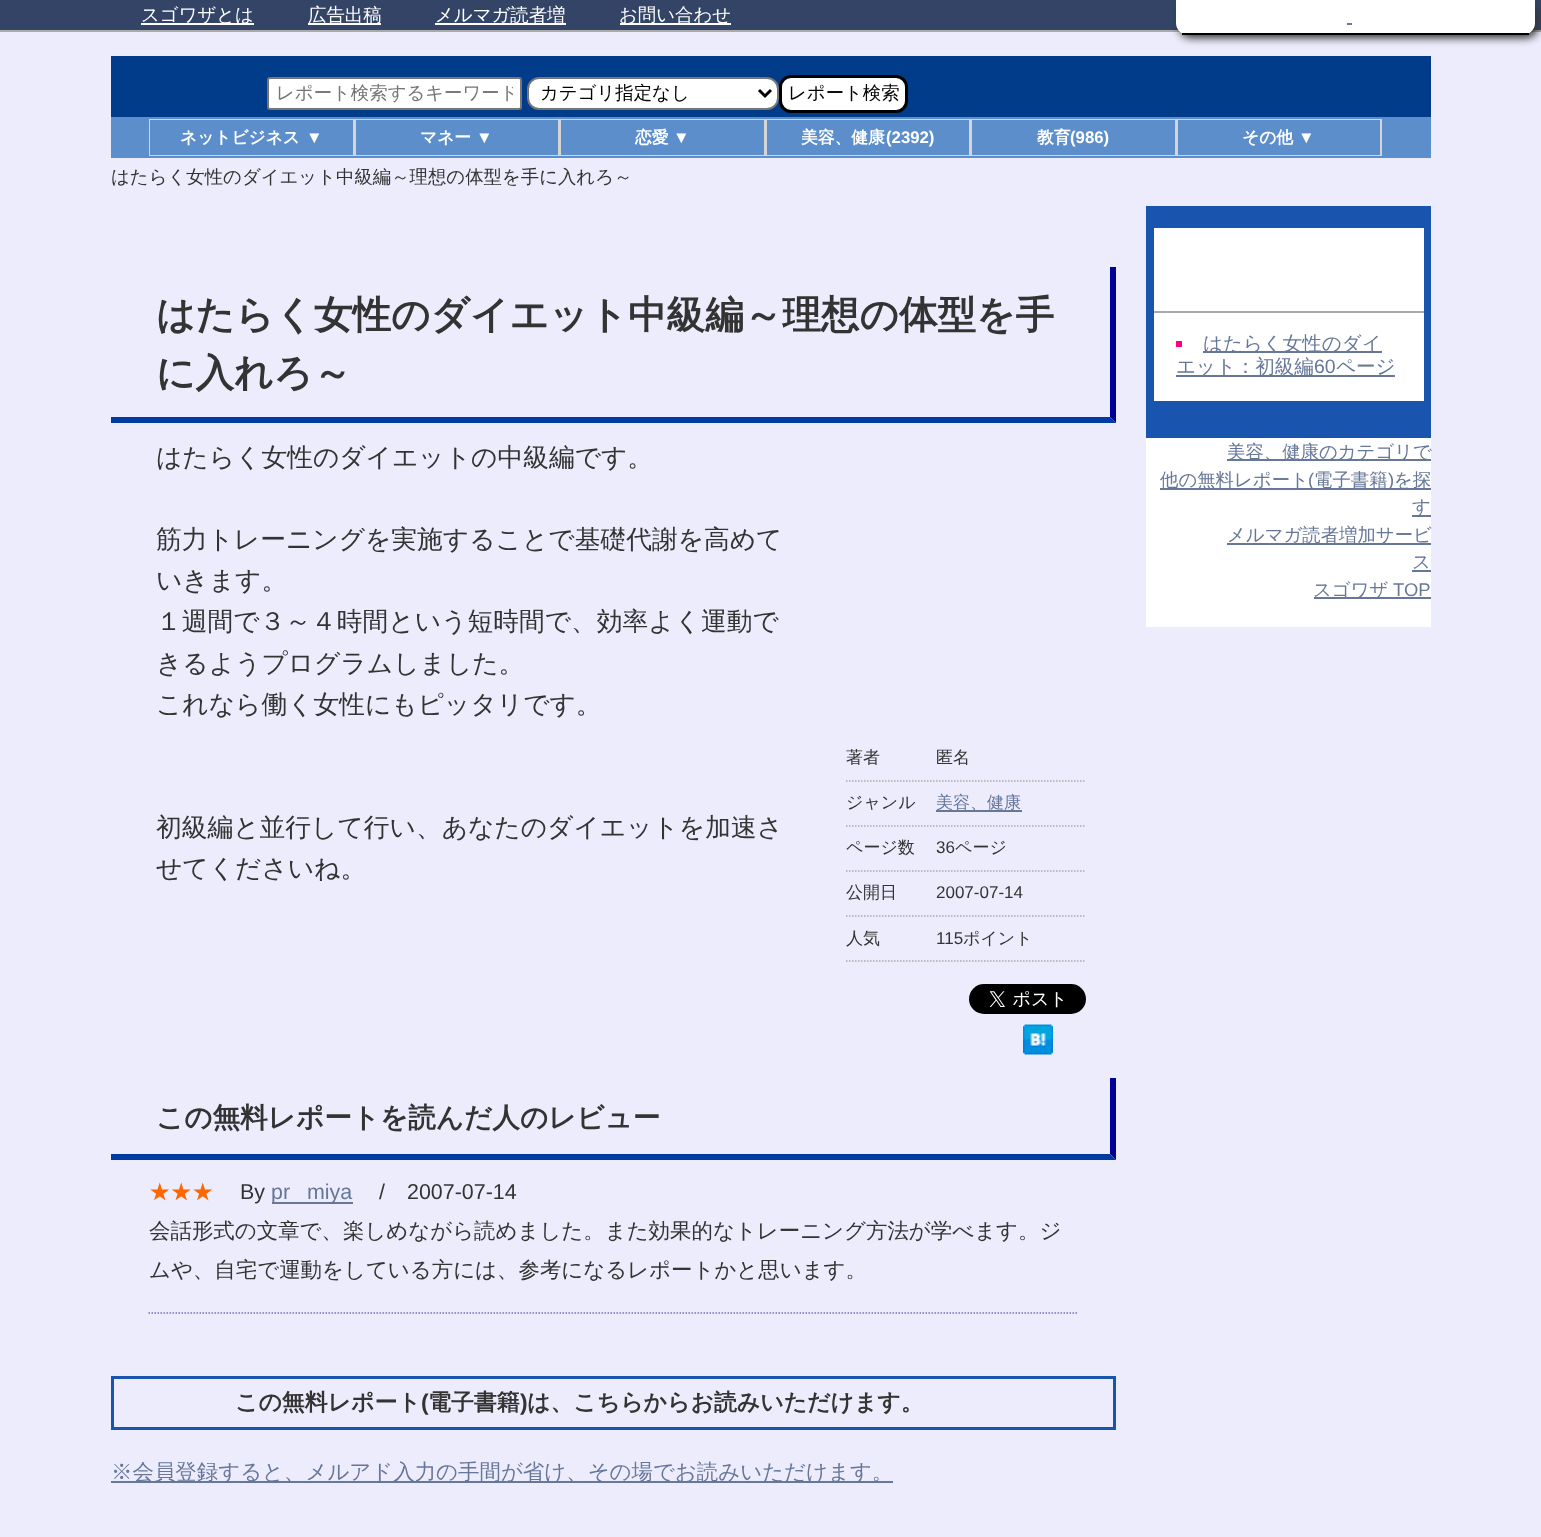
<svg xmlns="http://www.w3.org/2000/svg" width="1541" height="1537">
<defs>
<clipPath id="clip1"><rect x="276" y="81" width="237" height="26"/></clipPath>
</defs>
<rect width="100%" height="100%" fill="#edecfc"/>
<rect width="1541" height="30" fill="#346"/>
<rect y="30" width="1541" height="2" fill="#aaa"/>
<rect x="141" y="23" width="113" height="2" fill="#fff"/>
<text x="141" y="21" style="font-family:WenQuanYi Zen Hei;font-size:18.4px;font-weight:500;fill:#fff">スゴワザとは</text>
<rect x="308" y="23" width="73" height="2" fill="#fff"/>
<text x="308" y="21" style="font-family:WenQuanYi Zen Hei;font-size:18.4px;font-weight:500;fill:#fff">広告出稿</text>
<rect x="435" y="23" width="131" height="2" fill="#fff"/>
<text x="435" y="21" style="font-family:WenQuanYi Zen Hei;font-size:18.4px;font-weight:500;fill:#fff">メルマガ読者増</text>
<rect x="620" y="23" width="111" height="2" fill="#fff"/>
<text x="619" y="21" style="font-family:WenQuanYi Zen Hei;font-size:18.4px;font-weight:500;fill:#fff">お問い合わせ</text>
<rect x="1179" y="3" width="359" height="35" rx="12" fill="#333" filter="blur(4px)"/>
<path d="M1176 0h359v23c0 6.5-5.5 12-12 12h-335c-6.5 0-12-5.5-12-12z" fill="#fff"/>
<rect x="1182" y="33" width="347" height="2" fill="#000"/>
<rect x="1347" y="23" width="5" height="2" fill="#679"/>
<rect x="111" y="56" width="1320" height="61" fill="#003c8a"/>
<rect x="268" y="78" width="253" height="31" rx="2" fill="#fff" stroke="#767676" stroke-width="2"/>
<g clip-path="url(#clip1)">
<text x="276" y="99" style="font-family:WenQuanYi Zen Hei;font-size:18.4px;font-weight:500;fill:#757575">レポート検索するキーワード</text>
</g>
<rect x="528" y="78" width="250" height="31" rx="11" fill="#fff" stroke="#767676" stroke-width="2"/>
<path d="M759 90l6 6l6-6" fill="none" stroke="#000" stroke-width="3"/>
<text x="540" y="99" style="font-family:WenQuanYi Zen Hei;font-size:18.4px;font-weight:500;fill:#000">カテゴリ指定なし</text>
<rect x="780.5" y="76.5" width="126" height="35" rx="10.5" fill="#fff" stroke="#000" stroke-width="3"/>
<text x="788" y="99" style="font-family:WenQuanYi Zen Hei;font-size:18.4px;font-weight:500;fill:#000">レポート検索</text>
<rect x="111" y="117" width="1320" height="41" fill="#5c8ecc"/>
<rect x="150" y="120" width="203" height="35" fill="none" stroke="#d5d5d8" stroke-width="2"/>
<rect x="150" y="120" width="203" height="35" fill="#5c8ecc"/>
<text x="180" y="143" style="font-family:WenQuanYi Zen Hei;font-size:16.75px;font-weight:bold;fill:#fff">ネットビジネス</text>
<text x="306" y="143" style="font-family:Liberation Sans;font-size:16.75px;font-weight:bold;fill:#fff">▼</text>
<rect x="355" y="120" width="204" height="35" fill="none" stroke="#d5d5d8" stroke-width="2"/>
<rect x="356" y="120" width="202" height="35" fill="#5c8ecc"/>
<text x="420" y="143" style="font-family:WenQuanYi Zen Hei;font-size:16.75px;font-weight:bold;fill:#fff">マネー</text>
<text x="476" y="143" style="font-family:Liberation Sans;font-size:16.75px;font-weight:bold;fill:#fff">▼</text>
<rect x="561" y="120" width="203" height="35" fill="none" stroke="#d5d5d8" stroke-width="2"/>
<rect x="561" y="120" width="203" height="35" fill="#5c8ecc"/>
<text x="635" y="143" style="font-family:WenQuanYi Zen Hei;font-size:16.75px;font-weight:bold;fill:#fff">恋愛</text>
<text x="673" y="143" style="font-family:Liberation Sans;font-size:16.75px;font-weight:bold;fill:#fff">▼</text>
<rect x="766" y="120" width="204" height="35" fill="none" stroke="#d5d5d8" stroke-width="2"/>
<rect x="767" y="120" width="202" height="35" fill="#5c8ecc"/>
<text x="801" y="143" style="font-family:WenQuanYi Zen Hei;font-size:16.75px;font-weight:bold;fill:#fff">美容、健康</text>
<text x="886" y="143" style="font-family:Liberation Sans;font-size:16.75px;font-weight:bold;fill:#fff">(2392)</text>
<rect x="972" y="120" width="203" height="35" fill="none" stroke="#d5d5d8" stroke-width="2"/>
<rect x="972" y="120" width="203" height="35" fill="#5c8ecc"/>
<text x="1037" y="143" style="font-family:WenQuanYi Zen Hei;font-size:16.75px;font-weight:bold;fill:#fff">教育</text>
<text x="1070" y="143" style="font-family:Liberation Sans;font-size:16.75px;font-weight:bold;fill:#fff">(986)</text>
<rect x="1177" y="120" width="204" height="35" fill="none" stroke="#d5d5d8" stroke-width="2"/>
<rect x="1178" y="120" width="202" height="35" fill="#5c8ecc"/>
<text x="1242" y="143" style="font-family:WenQuanYi Zen Hei;font-size:16.75px;font-weight:bold;fill:#fff">その他</text>
<text x="1298" y="143" style="font-family:Liberation Sans;font-size:16.75px;font-weight:bold;fill:#fff">▼</text>
<text x="111" y="183" style="font-family:WenQuanYi Zen Hei;font-size:18.4px;font-weight:500;fill:#333">はたらく女性のダイエット中級編～理想の体型を手に入れろ～</text>
<path d="M1116 267v156l-6-6v-150z" fill="#009"/>
<path d="M1116 423h-1005v-6h999z" fill="#003aa2"/>
<text x="156" y="328" style="font-family:WenQuanYi Zen Hei;font-size:38.6px;font-weight:bold;fill:#333">はたらく女性のダイエット中級編～理想の体型を手</text>
<text x="156" y="386" style="font-family:WenQuanYi Zen Hei;font-size:38.6px;font-weight:bold;fill:#333">に入れろ～</text>
<text x="156" y="466" style="font-family:WenQuanYi Zen Hei;font-size:25.75px;font-weight:500;fill:#333">はたらく女性のダイエットの中級編です。</text>
<text x="156" y="548" style="font-family:WenQuanYi Zen Hei;font-size:25.75px;font-weight:500;fill:#333">筋力トレーニングを実施することで基礎代謝を高めて</text>
<text x="156" y="589" style="font-family:WenQuanYi Zen Hei;font-size:25.75px;font-weight:500;fill:#333">いきます。</text>
<text x="156" y="630" style="font-family:WenQuanYi Zen Hei;font-size:25.75px;font-weight:500;fill:#333">１週間で３～４時間という短時間で、効率よく運動で</text>
<text x="156" y="672" style="font-family:WenQuanYi Zen Hei;font-size:25.75px;font-weight:500;fill:#333">きるようプログラムしました。</text>
<text x="156" y="713" style="font-family:WenQuanYi Zen Hei;font-size:25.75px;font-weight:500;fill:#333">これなら働く女性にもピッタリです。</text>
<text x="156" y="836" style="font-family:WenQuanYi Zen Hei;font-size:25.75px;font-weight:500;fill:#333">初級編と並行して行い、あなたのダイエットを加速さ</text>
<text x="156" y="877" style="font-family:WenQuanYi Zen Hei;font-size:25.75px;font-weight:500;fill:#333">せてくださいね。</text>
<text x="846" y="763" style="font-family:WenQuanYi Zen Hei;font-size:17px;font-weight:500;fill:#333">著者</text>
<path d="M846 781h240" fill="none" stroke="#aaa" stroke-width="1.5" stroke-dasharray="1.5 1.5"/>
<text x="936" y="763" style="font-family:WenQuanYi Zen Hei;font-size:17px;font-weight:500;fill:#333">匿名</text>
<text x="846" y="808" style="font-family:WenQuanYi Zen Hei;font-size:17px;font-weight:500;fill:#333">ジャンル</text>
<path d="M846 826h240" fill="none" stroke="#aaa" stroke-width="1.5" stroke-dasharray="1.5 1.5"/>
<rect x="936" y="810" width="86" height="2" fill="#679"/>
<text x="936" y="808" style="font-family:WenQuanYi Zen Hei;font-size:17px;font-weight:500;fill:#679">美容、健康</text>
<text x="846" y="853" style="font-family:WenQuanYi Zen Hei;font-size:17px;font-weight:500;fill:#333">ページ数</text>
<path d="M846 871h240" fill="none" stroke="#aaa" stroke-width="1.5" stroke-dasharray="1.5 1.5"/>
<text x="936" y="853" style="font-family:Liberation Sans;font-size:17px;fill:#333">36</text>
<text x="955" y="853" style="font-family:WenQuanYi Zen Hei;font-size:17px;font-weight:500;fill:#333">ページ</text>
<text x="846" y="898" style="font-family:WenQuanYi Zen Hei;font-size:17px;font-weight:500;fill:#333">公開日</text>
<path d="M846 916h240" fill="none" stroke="#aaa" stroke-width="1.5" stroke-dasharray="1.5 1.5"/>
<text x="936" y="898" style="font-family:Liberation Sans;font-size:17px;fill:#333">2007-07-14</text>
<text x="846" y="944" style="font-family:WenQuanYi Zen Hei;font-size:17px;font-weight:500;fill:#333">人気</text>
<path d="M846 961h240" fill="none" stroke="#aaa" stroke-width="1.5" stroke-dasharray="1.5 1.5"/>
<text x="936" y="944" style="font-family:Liberation Sans;font-size:17px;fill:#333">115</text>
<text x="963" y="944" style="font-family:WenQuanYi Zen Hei;font-size:17px;font-weight:500;fill:#333">ポイント</text>
<image x="969" y="984" width="117" height="30" href="media/1.png"/>
<image x="1023" y="1024" width="30" height="31" href="media/2.png"/>
<path d="M1116 1078v82l-6-6v-76z" fill="#009"/>
<path d="M1116 1160h-1005v-6h999z" fill="#003aa2"/>
<text x="156" y="1127" style="font-family:WenQuanYi Zen Hei;font-size:27.6px;font-weight:bold;fill:#333">この無料レポートを読んだ人のレビュー</text>
<path d="M148.5 1313h930" fill="none" stroke="#7070ba" stroke-width="1.5" stroke-dasharray="1.5 1.5"/>
<text x="149" y="1199" style="font-family:WenQuanYi Zen Hei;font-size:21.45px;font-weight:500;fill:#f60">★★★</text>
<text x="240" y="1199" style="font-family:Liberation Sans;font-size:21.45px;fill:#333">By</text>
<rect x="272" y="1202" width="81" height="2" fill="#679"/>
<text x="271" y="1199" style="font-family:Liberation Sans;font-size:21.45px;fill:#679">pr</text>
<text x="307" y="1199" style="font-family:Liberation Sans;font-size:21.45px;fill:#679">miya</text>
<text x="379" y="1199" style="font-family:Liberation Sans;font-size:21.45px;fill:#333">/</text>
<text x="407" y="1199" style="font-family:Liberation Sans;font-size:21.45px;fill:#333">2007-07-14</text>
<text x="149" y="1238" style="font-family:WenQuanYi Zen Hei;font-size:21.45px;font-weight:500;fill:#333">会話形式の文章で、楽しめながら読めました。また効果的なトレーニング方法が学べます。ジ</text>
<text x="149" y="1277" style="font-family:WenQuanYi Zen Hei;font-size:21.45px;font-weight:500;fill:#333">ムや、自宅で運動をしている方には、参考になるレポートかと思います。</text>
<rect x="112.5" y="1377.5" width="1002" height="51" fill="none" stroke="#1954af" stroke-width="3"/>
<text x="235" y="1410" style="font-family:WenQuanYi Zen Hei;font-size:22.9px;font-weight:bold;fill:#333">この無料レポート</text>
<text x="421" y="1410" style="font-family:Liberation Sans;font-size:22.9px;font-weight:bold;fill:#333">(</text>
<text x="428" y="1410" style="font-family:WenQuanYi Zen Hei;font-size:22.9px;font-weight:bold;fill:#333">電子書籍</text>
<text x="520" y="1410" style="font-family:Liberation Sans;font-size:22.9px;font-weight:bold;fill:#333">)</text>
<text x="527" y="1410" style="font-family:WenQuanYi Zen Hei;font-size:22.9px;font-weight:bold;fill:#333">は、こちらからお読みいただけます。</text>
<rect x="111" y="1481" width="782" height="2" fill="#679"/>
<text x="111" y="1479" style="font-family:WenQuanYi Zen Hei;font-size:21.45px;font-weight:500;fill:#679">※会員登録すると、メルアド入力の手間が省け、その場でお読みいただけます。</text>
<rect x="1146" y="206" width="285" height="232" fill="#1954af"/>
<rect x="1154" y="228" width="270" height="173" fill="#fff"/>
<rect x="1154" y="311" width="270" height="2" fill="#aaa"/>
<rect x="1176" y="341" width="6" height="6" fill="#ff0080"/>
<rect x="1203" y="351" width="179" height="2" fill="#679"/>
<text x="1203" y="350" style="font-family:WenQuanYi Zen Hei;font-size:19.5px;font-weight:500;fill:#679">はたらく女性のダイ</text>
<rect x="1176" y="375" width="219" height="2" fill="#679"/>
<text x="1176" y="373" style="font-family:WenQuanYi Zen Hei;font-size:19.5px;font-weight:500;fill:#679">エット：初級編</text>
<text x="1314" y="373" style="font-family:Liberation Sans;font-size:19.5px;fill:#679">60</text>
<text x="1336" y="373" style="font-family:WenQuanYi Zen Hei;font-size:19.5px;font-weight:500;fill:#679">ページ</text>
<rect x="1146" y="438" width="285" height="189" fill="#fff"/>
<rect x="1227" y="459" width="204" height="2" fill="#679"/>
<text x="1227" y="458" style="font-family:WenQuanYi Zen Hei;font-size:18.4px;font-weight:500;fill:#679">美容、健康のカテゴリで</text>
<rect x="1160" y="488" width="271" height="2" fill="#679"/>
<text x="1160" y="486" style="font-family:WenQuanYi Zen Hei;font-size:18.4px;font-weight:500;fill:#679">他の無料レポート</text>
<text x="1308" y="486" style="font-family:Liberation Sans;font-size:18.4px;fill:#679">(</text>
<text x="1314" y="486" style="font-family:WenQuanYi Zen Hei;font-size:18.4px;font-weight:500;fill:#679">電子書籍</text>
<text x="1388" y="486" style="font-family:Liberation Sans;font-size:18.4px;fill:#679">)</text>
<text x="1394" y="486" style="font-family:WenQuanYi Zen Hei;font-size:18.4px;font-weight:500;fill:#679">を探</text>
<rect x="1412" y="515" width="19" height="2" fill="#679"/>
<text x="1412" y="513" style="font-family:WenQuanYi Zen Hei;font-size:18.4px;font-weight:500;fill:#679">す</text>
<rect x="1227" y="543" width="204" height="2" fill="#679"/>
<text x="1227" y="541" style="font-family:WenQuanYi Zen Hei;font-size:18.4px;font-weight:500;fill:#679">メルマガ読者増加サービ</text>
<text x="1412" y="568" style="font-family:WenQuanYi Zen Hei;font-size:18.4px;font-weight:500;fill:#679">ス</text>
<rect x="1412" y="570" width="19" height="2" fill="#679"/>
<rect x="1314" y="597" width="117" height="2" fill="#679"/>
<text x="1313" y="596" style="font-family:WenQuanYi Zen Hei;font-size:18.4px;font-weight:500;fill:#679">スゴワザ</text>
<text x="1393" y="596" style="font-family:Liberation Sans;font-size:18.4px;fill:#679">TOP</text>
</svg>
